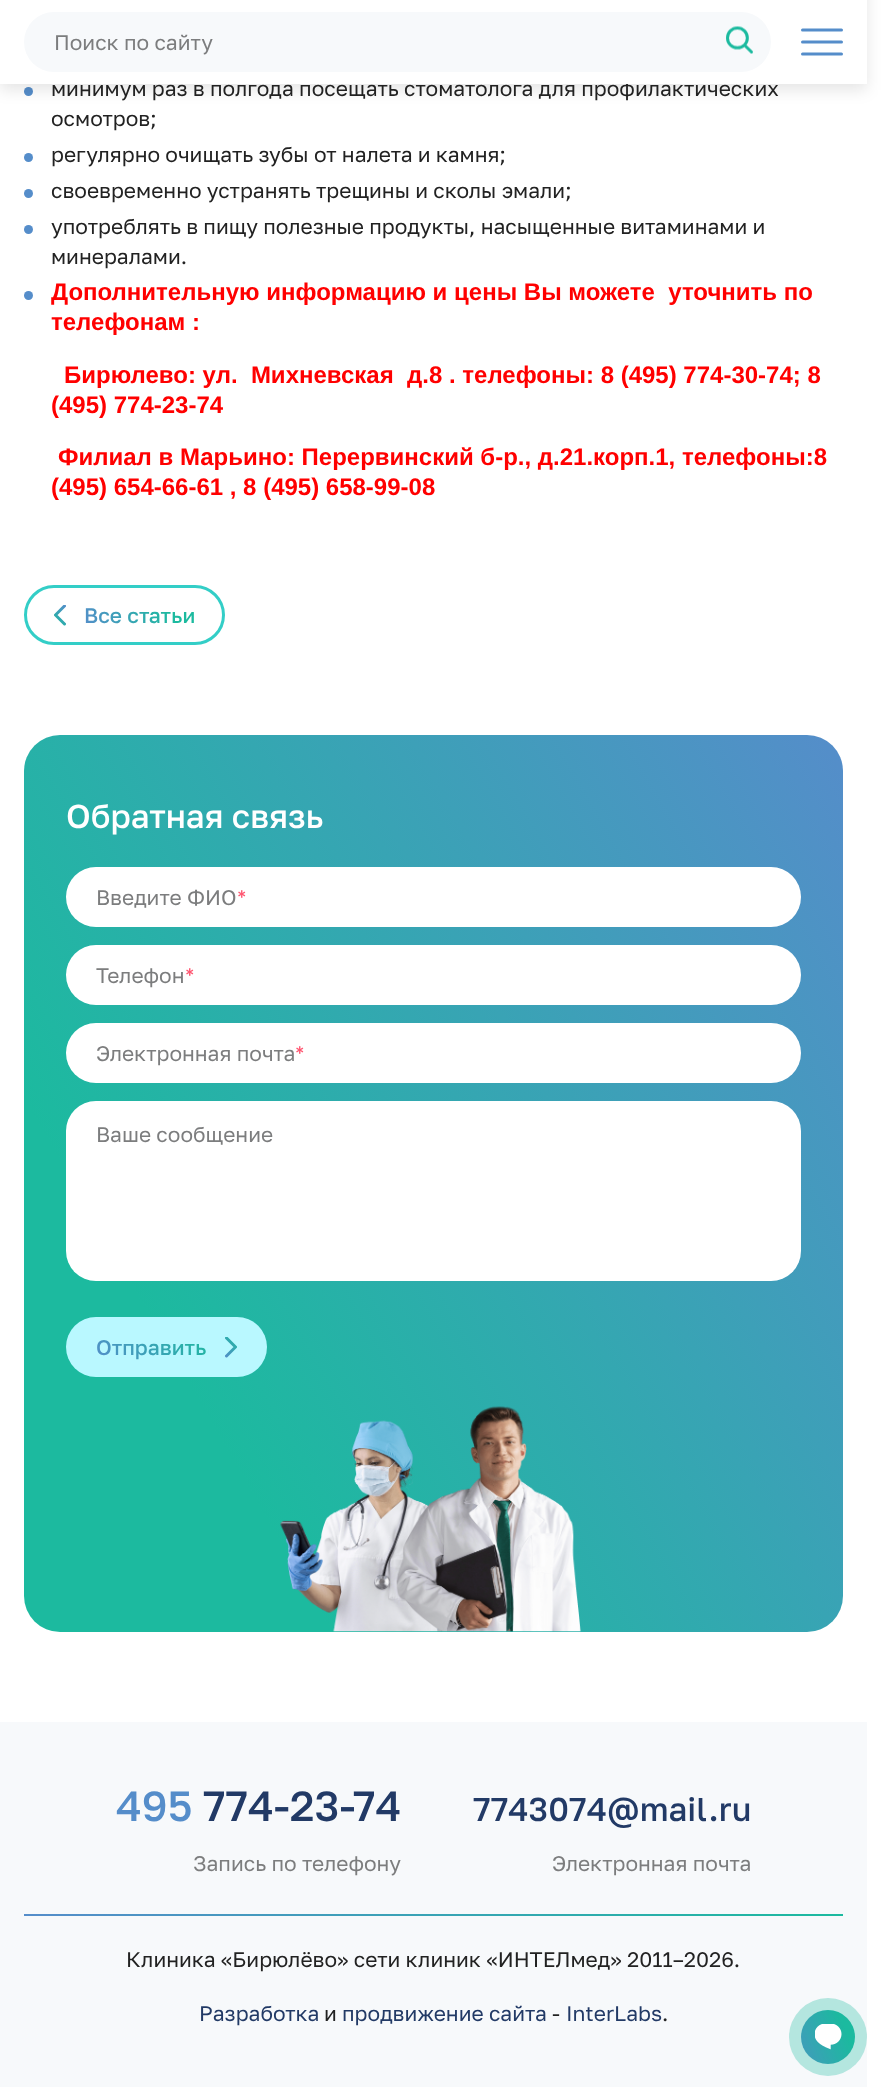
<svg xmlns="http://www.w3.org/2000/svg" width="889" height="2087">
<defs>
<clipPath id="clip1"><rect x="54" y="605" width="12" height="21"/></clipPath>
<linearGradient id="g1" gradientUnits="userSpaceOnUse" x1="68" y1="607" x2="52" y2="623"><stop offset="0" stop-color="#558dca"/><stop offset="1" stop-color="#1cba9f"/></linearGradient>
<linearGradient id="g2" gradientUnits="userSpaceOnUse" x1="87" y1="637" x2="192" y2="593"><stop offset="0" stop-color="#558dca"/><stop offset="0.77" stop-color="#1cba9f"/></linearGradient>
<linearGradient id="g3" gradientUnits="userSpaceOnUse" x1="116" y1="1382" x2="186" y2="1312"><stop offset="0" stop-color="#558dca"/><stop offset="1" stop-color="#1cba9f"/></linearGradient>
<linearGradient id="g4" gradientUnits="userSpaceOnUse" x1="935" y1="894" x2="-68" y2="1473"><stop offset="0" stop-color="#558dca"/><stop offset="0.77" stop-color="#1cba9f"/></linearGradient>
<clipPath id="clip2"><rect x="225" y="1337" width="12" height="21"/></clipPath>
<linearGradient id="g5" gradientUnits="userSpaceOnUse" x1="222" y1="1355" x2="239" y2="1339"><stop offset="0" stop-color="#558dca"/><stop offset="1" stop-color="#1cba9f"/></linearGradient>
<linearGradient id="g6" gradientUnits="userSpaceOnUse" x1="228" y1="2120" x2="639" y2="1710"><stop offset="0" stop-color="#558dca"/><stop offset="1" stop-color="#1cba9f"/></linearGradient>
<linearGradient id="g7" gradientUnits="userSpaceOnUse" x1="795" y1="2051" x2="861" y2="2023"><stop offset="0" stop-color="#558dca"/><stop offset="0.77" stop-color="#1cba9f"/></linearGradient>
</defs>
<rect width="100%" height="100%" fill="#fff"/>
<circle cx="28.5" cy="91.5" r="4.5" fill="#558dca"/>
<rect y="-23" width="867" height="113" fill="#0000001a" filter="blur(7.5px)"/>
<text x="51" y="96" style="font-family:Golos Text;font-size:21px;fill:#222">минимум раз в полгода посещать стоматолога для профилактических</text>
<rect width="867" height="84" fill="#fff"/>
<rect x="24" y="12" width="747" height="60" rx="30" fill="#f7f9fb"/>
<text x="54" y="50" style="font-family:Golos Text;font-size:21px;fill:#7c7d7e">Поиск по сайту</text>
<image x="726" y="26" width="27" height="28" href="media/1.png"/>
<path d="M802.5 30h39m-39 12h39m-39 0h39m-39 12h39" fill="none" stroke="#558dca" stroke-width="3" stroke-linecap="round"/>
<text x="51" y="126" style="font-family:Golos Text;font-size:21px;fill:#222">осмотров;</text>
<circle cx="28.5" cy="157.5" r="4.5" fill="#558dca"/>
<text x="51" y="162" style="font-family:Golos Text;font-size:21px;fill:#222">регулярно очищать зубы от налета и камня;</text>
<circle cx="28.5" cy="193.5" r="4.5" fill="#558dca"/>
<text x="51" y="198" style="font-family:Golos Text;font-size:21px;fill:#222">своевременно устранять трещины и сколы эмали;</text>
<circle cx="28.5" cy="229.5" r="4.5" fill="#558dca"/>
<text x="51" y="234" style="font-family:Golos Text;font-size:21px;fill:#222">употреблять в пищу полезные продукты, насыщенные витаминами и</text>
<text x="51" y="264" style="font-family:Golos Text;font-size:21px;fill:#222">минералами.</text>
<circle cx="28.5" cy="295.5" r="4.5" fill="#558dca"/>
<text x="51" y="300" style="font-family:Liberation Sans;font-size:24px;font-weight:bold;fill:#f00" xml:space="preserve">Дополнительную информацию и цены Вы можете  уточнить по</text>
<text x="51" y="330" style="font-family:Liberation Sans;font-size:24px;font-weight:bold;fill:#f00">телефонам :</text>
<text x="64" y="383" style="font-family:Liberation Sans;font-size:24px;font-weight:bold;fill:#f00" xml:space="preserve">Бирюлево: ул.  Михневская  д.8 . телефоны: 8 (495) 774-30-74; 8</text>
<text x="51" y="413" style="font-family:Liberation Sans;font-size:24px;font-weight:bold;fill:#f00">(495) 774-23-74</text>
<text x="58" y="465" style="font-family:Liberation Sans;font-size:24px;font-weight:bold;fill:#f00">Филиал в Марьино: Перервинский б-р., д.21.корп.1, телефоны:8</text>
<text x="51" y="495" style="font-family:Liberation Sans;font-size:24px;font-weight:bold;fill:#f00">(495) 654-66-61 , 8 (495) 658-99-08</text>
<rect x="25.5" y="586.5" width="198" height="57" rx="28.5" fill="none" stroke="#33cec7" stroke-width="3"/>
<g clip-path="url(#clip1)">
<path d="M64.5 606l-9 9l9 9" fill="none" stroke="url(#g1)" stroke-width="3" stroke-linecap="round" stroke-linejoin="round"/>
</g>
<text x="84" y="623" style="font-family:Golos Text;font-size:21px;font-weight:500;fill:url(#g2)">Все статьи</text>
<rect x="24" y="735" width="819" height="897" rx="36" fill="url(#g4)"/>
<text x="66" y="828" style="font-family:Golos Text;font-size:33px;font-weight:500;fill:#fff">Обратная связь</text>
<rect x="66" y="867" width="735" height="60" rx="30" fill="#fff"/>
<text x="96" y="905" style="font-family:Golos Text;font-size:21px;fill:#7c7d7e">Введите ФИО</text>
<text x="237" y="905" style="font-family:Golos Text;font-size:21px;fill:#ff5872">*</text>
<rect x="66" y="945" width="735" height="60" rx="30" fill="#fff"/>
<text x="96" y="983" style="font-family:Golos Text;font-size:21px;fill:#7c7d7e">Телефон</text>
<text x="185" y="983" style="font-family:Golos Text;font-size:21px;fill:#ff5872">*</text>
<rect x="66" y="1023" width="735" height="60" rx="30" fill="#fff"/>
<text x="96" y="1061" style="font-family:Golos Text;font-size:21px;fill:#7c7d7e">Электронная почта</text>
<text x="295" y="1061" style="font-family:Golos Text;font-size:21px;fill:#ff5872">*</text>
<rect x="66" y="1101" width="735" height="180" rx="30" fill="#fff"/>
<text x="96" y="1142" style="font-family:Golos Text;font-size:21px;fill:#7c7d7e">Ваше сообщение</text>
<rect x="66" y="1317" width="201" height="60" rx="30" fill="#b9f8ff"/>
<text x="96" y="1355" style="font-family:Golos Text;font-size:21px;font-weight:500;fill:url(#g3)">Отправить</text>
<g clip-path="url(#clip2)">
<path d="M226.5 1356l9-9l-9-9" fill="none" stroke="url(#g5)" stroke-width="3" stroke-linecap="round" stroke-linejoin="round"/>
</g>
<image x="280" y="1406" width="301" height="226" href="media/2.png"/>
<rect y="1722" width="867" height="365" fill="#f7f9fb"/>
<text x="116" y="1821" style="font-family:Golos Text;font-size:42px;font-weight:500;fill:#558dca">495</text>
<text x="203" y="1821" style="font-family:Golos Text;font-size:42px;font-weight:500;fill:#223a66">774-23-74</text>
<text x="193" y="1871" style="font-family:Golos Text;font-size:21px;fill:#7c7d7e">Запись по телефону</text>
<text x="473" y="1821" style="font-family:Golos Text;font-size:33px;font-weight:500;fill:#223a66">7743074@mail.ru</text>
<text x="552" y="1871" style="font-family:Golos Text;font-size:21px;fill:#7c7d7e">Электронная почта</text>
<rect x="24" y="1914" width="819" height="2" fill="url(#g6)"/>
<text x="126" y="1967" style="font-family:Golos Text;font-size:21px;fill:#222">Клиника «Бирюлёво» сети клиник «ИНТЕЛмед» 2011–2026.</text>
<text x="199" y="2021" style="font-family:Golos Text;font-size:21px;fill:#223a66">Разработка</text>
<text x="324" y="2021" style="font-family:Golos Text;font-size:21px;fill:#222">и</text>
<text x="342" y="2021" style="font-family:Golos Text;font-size:21px;fill:#223a66">продвижение сайта</text>
<text x="552" y="2021" style="font-family:Golos Text;font-size:21px;fill:#222">-</text>
<text x="566" y="2021" style="font-family:Golos Text;font-size:21px;fill:#223a66">InterLabs</text>
<text x="662" y="2021" style="font-family:Golos Text;font-size:21px;fill:#222">.</text>
<circle cx="828" cy="2037" r="27" fill="url(#g7)"/>
<circle cx="828" cy="2037" r="39" fill="#1cba9f4d"/>
<image x="815" y="2024" width="27" height="26" href="media/3.png"/>
</svg>
